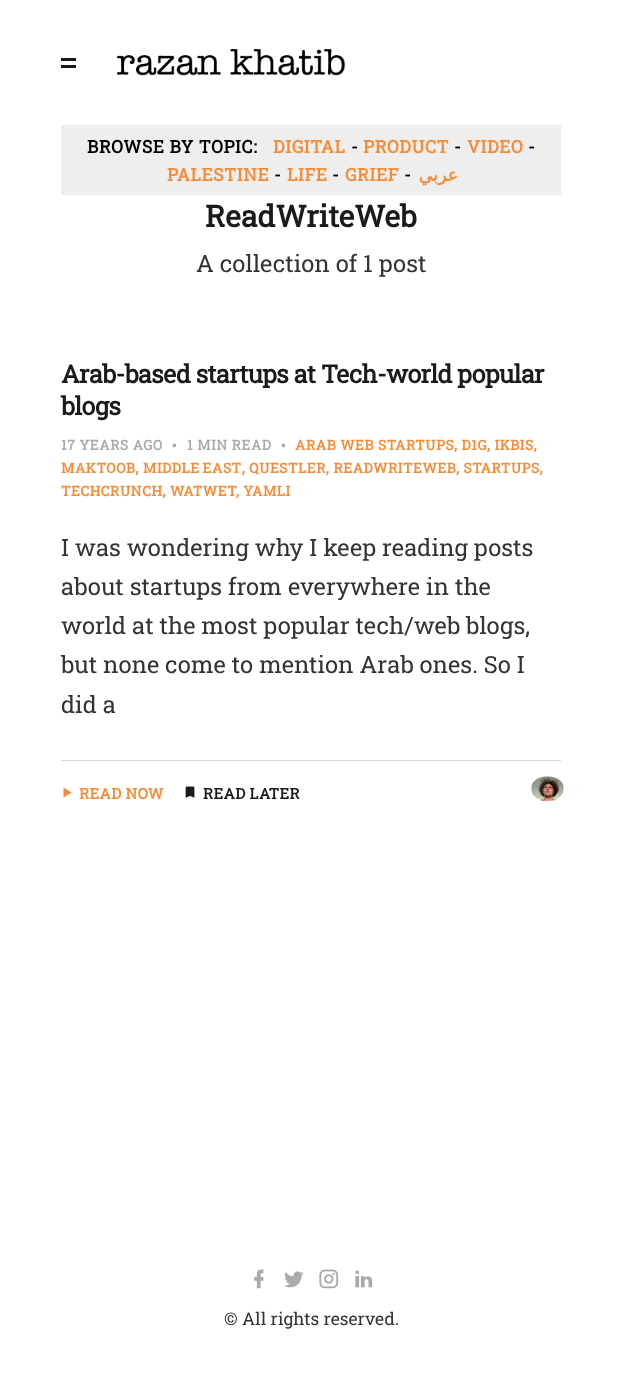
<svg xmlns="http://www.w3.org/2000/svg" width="622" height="1383">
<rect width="100%" height="100%" fill="#fff"/>
<rect x="61" y="58" width="15" height="3" fill="#1a1a1a"/>
<rect x="61" y="65" width="15" height="3" fill="#1a1a1a"/>
<image x="116" y="49" width="230" height="27" href="media/1.png"/>
<rect x="61" y="125" width="500" height="70" fill="#eee"/>
<text x="87" y="153" style="font-family:Roboto Slab;font-size:17.5px;font-weight:bold;letter-spacing:0.6px;fill:#000">BROWSE BY TOPIC:</text>
<text x="273" y="153" style="font-family:Roboto Slab;font-size:17.5px;font-weight:bold;letter-spacing:0.6px;fill:#f78b35">DIGITAL</text>
<text x="351" y="153" style="font-family:Roboto Slab;font-size:17.5px;font-weight:bold;letter-spacing:0.6px;fill:#000">-</text>
<text x="363" y="153" style="font-family:Roboto Slab;font-size:17.5px;font-weight:bold;letter-spacing:0.6px;fill:#f78b35">PRODUCT</text>
<text x="454" y="153" style="font-family:Roboto Slab;font-size:17.5px;font-weight:bold;letter-spacing:0.6px;fill:#000">-</text>
<text x="467" y="153" style="font-family:Roboto Slab;font-size:17.5px;font-weight:bold;letter-spacing:0.6px;fill:#f78b35">VIDEO</text>
<text x="528" y="153" style="font-family:Roboto Slab;font-size:17.5px;font-weight:bold;letter-spacing:0.6px;fill:#000">-</text>
<text x="167" y="181" style="font-family:Roboto Slab;font-size:17.5px;font-weight:bold;letter-spacing:0.6px;fill:#f78b35">PALESTINE</text>
<text x="274" y="181" style="font-family:Roboto Slab;font-size:17.5px;font-weight:bold;letter-spacing:0.6px;fill:#000">-</text>
<text x="287" y="181" style="font-family:Roboto Slab;font-size:17.5px;font-weight:bold;letter-spacing:0.6px;fill:#f78b35">LIFE</text>
<text x="332" y="181" style="font-family:Roboto Slab;font-size:17.5px;font-weight:bold;letter-spacing:0.6px;fill:#000">-</text>
<text x="345" y="181" style="font-family:Roboto Slab;font-size:17.5px;font-weight:bold;letter-spacing:0.6px;fill:#f78b35">GRIEF</text>
<text x="404" y="181" style="font-family:Roboto Slab;font-size:17.5px;font-weight:bold;letter-spacing:0.6px;fill:#000">-</text>
<text x="458" y="181" style="font-family:DejaVu Sans;font-size:17.5px;font-weight:bold;letter-spacing:0.6px;direction:rtl;fill:#f78b35">عربي</text>
<text x="205" y="227" style="font-family:Roboto Slab;font-size:30px;font-weight:bold;fill:#1a1a1a">ReadWriteWeb</text>
<text x="196" y="272" style="font-family:Roboto Slab;font-size:23.75px;fill:#333">A collection of 1 post</text>
<text x="61" y="383" style="font-family:Roboto Slab;font-size:25px;font-weight:bold;letter-spacing:-0.6px;fill:#1a1a1a">Arab-based startups at Tech-world popular</text>
<text x="61" y="415" style="font-family:Roboto Slab;font-size:25px;font-weight:bold;letter-spacing:-0.6px;fill:#1a1a1a">blogs</text>
<text x="61" y="450" style="font-family:Roboto Slab;font-size:13.75px;font-weight:bold;letter-spacing:0.6px;fill:#aaa">17 YEARS AGO</text>
<text x="172" y="450" style="font-family:Liberation Serif;font-size:13.75px;font-weight:bold;letter-spacing:0.6px;fill:#aaa">•</text>
<text x="187" y="450" style="font-family:Roboto Slab;font-size:13.75px;font-weight:bold;letter-spacing:0.6px;fill:#aaa">1 MIN READ</text>
<text x="281" y="450" style="font-family:Liberation Serif;font-size:13.75px;font-weight:bold;letter-spacing:0.6px;fill:#aaa">•</text>
<text x="295" y="450" style="font-family:Roboto Slab;font-size:13.75px;font-weight:bold;letter-spacing:0.6px;fill:#f78b35">ARAB WEB STARTUPS, D1G, IKBIS,</text>
<text x="61" y="473" style="font-family:Roboto Slab;font-size:13.75px;font-weight:bold;letter-spacing:0.6px;fill:#f78b35">MAKTOOB,</text>
<text x="143" y="473" word-spacing="-1" style="font-family:Roboto Slab;font-size:13.75px;font-weight:bold;letter-spacing:0.6px;fill:#f78b35">MIDDLE EAST</text>
<text x="242" y="473" style="font-family:Roboto Slab;font-size:13.75px;font-weight:bold;letter-spacing:0.6px;fill:#f78b35">, QUESTLER, READWRITEWEB, STARTUPS,</text>
<text x="61" y="496" style="font-family:Roboto Slab;font-size:13.75px;font-weight:bold;letter-spacing:0.6px;fill:#f78b35">TECHCRUNCH, WATWET</text>
<text x="236" y="496" style="font-family:Roboto Slab;font-size:13.75px;font-weight:bold;letter-spacing:0.6px;fill:#f78b35">, YAMLI</text>
<text x="61" y="556" style="font-family:Roboto Slab;font-size:23.75px;fill:#333">I was wondering why I keep reading posts</text>
<text x="61" y="595" style="font-family:Roboto Slab;font-size:23.75px;fill:#333">about startups from everywhere in the</text>
<text x="61" y="634" style="font-family:Roboto Slab;font-size:23.75px;fill:#333">world at the most popular tech/web blogs,</text>
<text x="61" y="673" style="font-family:Roboto Slab;font-size:23.75px;fill:#333">but none come to mention Arab ones. So I</text>
<text x="61" y="713" style="font-family:Roboto Slab;font-size:23.75px;fill:#333">did a</text>
<rect x="61" y="760" width="500" height="1" fill="#d9d9d9"/>
<path d="M63.5 787.5v10l8-5z" fill="#f78b35"/>
<text x="79" y="799" style="font-family:Roboto Slab;font-size:15px;font-weight:bold;letter-spacing:0.4px;fill:#f78b35">READ NOW</text>
<image x="185" y="786" width="10" height="12" href="media/2.png"/>
<text x="203" y="799" style="font-family:Roboto Slab;font-size:15px;font-weight:bold;letter-spacing:0.4px;fill:#1a1a1a">READ LATER</text>
<image x="531" y="776" width="33" height="26" href="media/3.png"/>
<image x="254" y="1269" width="10" height="20" href="media/4.png"/>
<image x="284" y="1271" width="20" height="17" href="media/5.png"/>
<image x="319" y="1269" width="20" height="20" href="media/6.png"/>
<image x="355" y="1270" width="18" height="18" href="media/7.png"/>
<text x="224" y="1325" style="font-family:Roboto Slab;font-size:17.5px;fill:#333">© All rights reserved.</text>
</svg>
